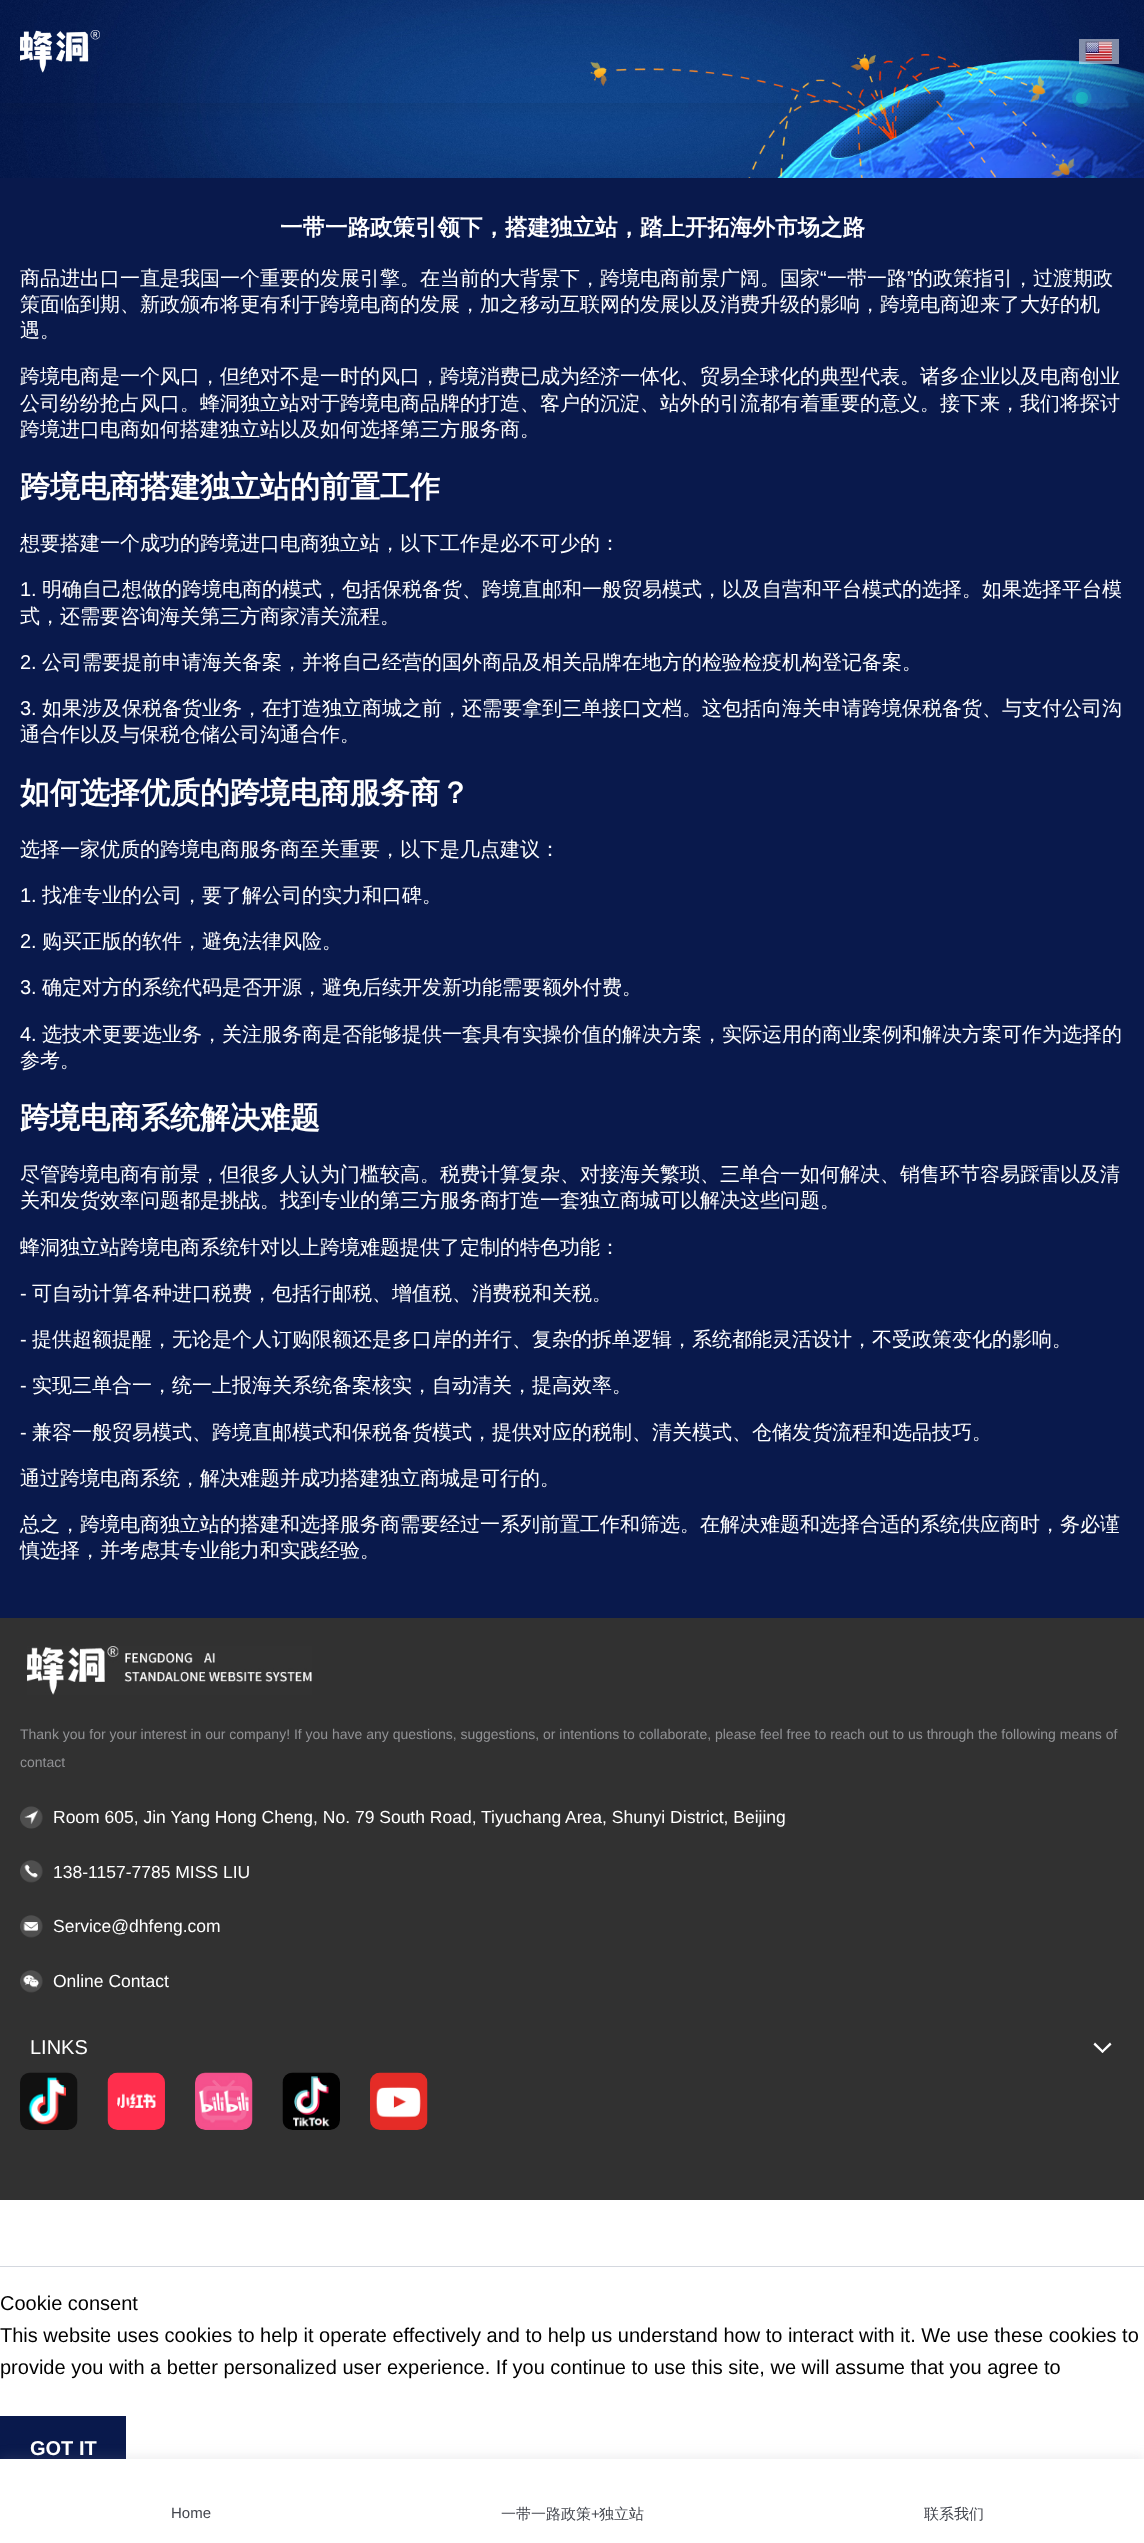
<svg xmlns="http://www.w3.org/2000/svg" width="1144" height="2543">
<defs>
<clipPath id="clip1"><path d="M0 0h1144v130h-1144zm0 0h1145v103h-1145z" clip-rule="evenodd"/></clipPath>
</defs>
<rect width="100%" height="100%" fill="#fff"/>
<rect y="178" width="1144" height="1440" fill="#09194c"/>
<image x="0" y="0" width="1144" height="178" href="media/1.png"/>
<g clip-path="url(#clip1)">
<rect y="5" width="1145" height="103" fill="#1d1f221a" filter="blur(7px)"/>
</g>
<image x="20" y="30" width="80" height="43" href="media/2.png"/>
<rect x="1079" y="39" width="40" height="25" fill="#ffffff80"/>
<image x="1085" y="41" width="27" height="20" href="media/3.png"/>
<text x="280" y="235" style="font-family:WenQuanYi Zen Hei;font-size:22.5px;font-weight:bold;fill:#fff">一带一路政策引领下，搭建独立站，踏上开拓海外市场之路</text>
<text x="20" y="285" style="font-family:WenQuanYi Zen Hei;font-size:20px;font-weight:500;fill:#fff">商品进出口一直是我国一个重要的发展引擎。在当前的大背景下，跨境电商前景广阔。国家</text>
<text x="820" y="285" style="font-family:Liberation Sans;font-size:20px;fill:#fff">“</text>
<text x="827" y="285" style="font-family:WenQuanYi Zen Hei;font-size:20px;font-weight:500;fill:#fff">一带一路</text>
<text x="907" y="285" style="font-family:Liberation Sans;font-size:20px;fill:#fff">”</text>
<text x="913" y="285" style="font-family:WenQuanYi Zen Hei;font-size:20px;font-weight:500;fill:#fff">的政策指引，过渡期政</text>
<text x="20" y="311" style="font-family:WenQuanYi Zen Hei;font-size:20px;font-weight:500;fill:#fff">策面临到期、新政颁布将更有利于跨境电商的发展，加之移动互联网的发展以及消费升级的影响，跨境电商迎来了大好的机</text>
<text x="20" y="337" style="font-family:WenQuanYi Zen Hei;font-size:20px;font-weight:500;fill:#fff">遇。</text>
<text x="20" y="383" style="font-family:WenQuanYi Zen Hei;font-size:20px;font-weight:500;fill:#fff">跨境电商是一个风口，但绝对不是一时的风口，跨境消费已成为经济一体化、贸易全球化的典型代表。诸多企业以及电商创业</text>
<text x="20" y="410" style="font-family:WenQuanYi Zen Hei;font-size:20px;font-weight:500;fill:#fff">公司纷纷抢占风口。蜂洞独立站对于跨境电商品牌的打造、客户的沉淀、站外的引流都有着重要的意义。接下来，我们将探讨</text>
<text x="20" y="436" style="font-family:WenQuanYi Zen Hei;font-size:20px;font-weight:500;fill:#fff">跨境进口电商如何搭建独立站以及如何选择第三方服务商。</text>
<text x="20" y="497" style="font-family:WenQuanYi Zen Hei;font-size:30px;font-weight:bold;fill:#fff">跨境电商搭建独立站的前置工作</text>
<text x="20" y="550" style="font-family:WenQuanYi Zen Hei;font-size:20px;font-weight:500;fill:#fff">想要搭建一个成功的跨境进口电商独立站，以下工作是必不可少的：</text>
<text x="20" y="596" style="font-family:Liberation Sans;font-size:20px;fill:#fff">1.</text>
<text x="42" y="596" style="font-family:WenQuanYi Zen Hei;font-size:20px;font-weight:500;fill:#fff">明确自己想做的跨境电商的模式，包括保税备货、跨境直邮和一般贸易模式，以及自营和平台模式的选择。如果选择平台模</text>
<text x="20" y="623" style="font-family:WenQuanYi Zen Hei;font-size:20px;font-weight:500;fill:#fff">式，还需要咨询海关第三方商家清关流程。</text>
<text x="20" y="669" style="font-family:Liberation Sans;font-size:20px;fill:#fff">2.</text>
<text x="42" y="669" style="font-family:WenQuanYi Zen Hei;font-size:20px;font-weight:500;fill:#fff">公司需要提前申请海关备案，并将自己经营的国外商品及相关品牌在地方的检验检疫机构登记备案。</text>
<text x="20" y="715" style="font-family:Liberation Sans;font-size:20px;fill:#fff">3.</text>
<text x="42" y="715" style="font-family:WenQuanYi Zen Hei;font-size:20px;font-weight:500;fill:#fff">如果涉及保税备货业务，在打造独立商城之前，还需要拿到三单接口文档。这包括向海关申请跨境保税备货、与支付公司沟</text>
<text x="20" y="741" style="font-family:WenQuanYi Zen Hei;font-size:20px;font-weight:500;fill:#fff">通合作以及与保税仓储公司沟通合作。</text>
<text x="20" y="803" style="font-family:WenQuanYi Zen Hei;font-size:30px;font-weight:bold;fill:#fff">如何选择优质的跨境电商服务商？</text>
<text x="20" y="856" style="font-family:WenQuanYi Zen Hei;font-size:20px;font-weight:500;fill:#fff">选择一家优质的跨境电商服务商至关重要，以下是几点建议：</text>
<text x="20" y="902" style="font-family:Liberation Sans;font-size:20px;fill:#fff">1.</text>
<text x="42" y="902" style="font-family:WenQuanYi Zen Hei;font-size:20px;font-weight:500;fill:#fff">找准专业的公司，要了解公司的实力和口碑。</text>
<text x="20" y="948" style="font-family:Liberation Sans;font-size:20px;fill:#fff">2.</text>
<text x="42" y="948" style="font-family:WenQuanYi Zen Hei;font-size:20px;font-weight:500;fill:#fff">购买正版的软件，避免法律风险。</text>
<text x="20" y="994" style="font-family:Liberation Sans;font-size:20px;fill:#fff">3.</text>
<text x="42" y="994" style="font-family:WenQuanYi Zen Hei;font-size:20px;font-weight:500;fill:#fff">确定对方的系统代码是否开源，避免后续开发新功能需要额外付费。</text>
<text x="20" y="1041" style="font-family:Liberation Sans;font-size:20px;fill:#fff">4.</text>
<text x="42" y="1041" style="font-family:WenQuanYi Zen Hei;font-size:20px;font-weight:500;fill:#fff">选技术更要选业务，关注服务商是否能够提供一套具有实操价值的解决方案，实际运用的商业案例和解决方案可作为选择的</text>
<text x="20" y="1067" style="font-family:WenQuanYi Zen Hei;font-size:20px;font-weight:500;fill:#fff">参考。</text>
<text x="20" y="1128" style="font-family:WenQuanYi Zen Hei;font-size:30px;font-weight:bold;fill:#fff">跨境电商系统解决难题</text>
<text x="20" y="1181" style="font-family:WenQuanYi Zen Hei;font-size:20px;font-weight:500;fill:#fff">尽管跨境电商有前景，但很多人认为门槛较高。税费计算复杂、对接海关繁琐、三单合一如何解决、销售环节容易踩雷以及清</text>
<text x="20" y="1207" style="font-family:WenQuanYi Zen Hei;font-size:20px;font-weight:500;fill:#fff">关和发货效率问题都是挑战。找到专业的第三方服务商打造一套独立商城可以解决这些问题。</text>
<text x="20" y="1254" style="font-family:WenQuanYi Zen Hei;font-size:20px;font-weight:500;fill:#fff">蜂洞独立站跨境电商系统针对以上跨境难题提供了定制的特色功能：</text>
<text x="20" y="1300" style="font-family:Liberation Sans;font-size:20px;fill:#fff">-</text>
<text x="32" y="1300" style="font-family:WenQuanYi Zen Hei;font-size:20px;font-weight:500;fill:#fff">可自动计算各种进口税费，包括行邮税、增值税、消费税和关税。</text>
<text x="20" y="1346" style="font-family:Liberation Sans;font-size:20px;fill:#fff">-</text>
<text x="32" y="1346" style="font-family:WenQuanYi Zen Hei;font-size:20px;font-weight:500;fill:#fff">提供超额提醒，无论是个人订购限额还是多口岸的并行、复杂的拆单逻辑，系统都能灵活设计，不受政策变化的影响。</text>
<text x="20" y="1392" style="font-family:Liberation Sans;font-size:20px;fill:#fff">-</text>
<text x="32" y="1392" style="font-family:WenQuanYi Zen Hei;font-size:20px;font-weight:500;fill:#fff">实现三单合一，统一上报海关系统备案核实，自动清关，提高效率。</text>
<text x="20" y="1439" style="font-family:Liberation Sans;font-size:20px;fill:#fff">-</text>
<text x="32" y="1439" style="font-family:WenQuanYi Zen Hei;font-size:20px;font-weight:500;fill:#fff">兼容一般贸易模式、跨境直邮模式和保税备货模式，提供对应的税制、清关模式、仓储发货流程和选品技巧。</text>
<text x="20" y="1485" style="font-family:WenQuanYi Zen Hei;font-size:20px;font-weight:500;fill:#fff">通过跨境电商系统，解决难题并成功搭建独立商城是可行的。</text>
<text x="20" y="1531" style="font-family:WenQuanYi Zen Hei;font-size:20px;font-weight:500;fill:#fff">总之，跨境电商独立站的搭建和选择服务商需要经过一系列前置工作和筛选。在解决难题和选择合适的系统供应商时，务必谨</text>
<text x="20" y="1557" style="font-family:WenQuanYi Zen Hei;font-size:20px;font-weight:500;fill:#fff">慎选择，并考虑其专业能力和实践经验。</text>
<rect y="2416" width="126" height="43" fill="#09194c"/>
<rect y="2456" width="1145" height="85" fill="#8d8f9a26" filter="blur(6px)"/>
<rect y="2459" width="1144" height="84" fill="#fff"/>
<text x="171" y="2518" style="font-family:Liberation Sans;font-size:15px;fill:#43464e">Home</text>
<text x="501" y="2519" style="font-family:WenQuanYi Zen Hei;font-size:15px;font-weight:500;fill:#43464e">一带一路政策</text>
<text x="591" y="2519" style="font-family:Liberation Sans;font-size:15px;fill:#43464e">+</text>
<text x="599" y="2519" style="font-family:WenQuanYi Zen Hei;font-size:15px;font-weight:500;fill:#43464e">独立站</text>
<text x="924" y="2519" style="font-family:WenQuanYi Zen Hei;font-size:15px;font-weight:500;fill:#43464e">联系我们</text>
<rect y="1618" width="1144" height="582" fill="#313131"/>
<image x="27" y="1646" width="285" height="49" href="media/4.png"/>
<text x="20" y="1739" style="font-family:Liberation Sans;font-size:14px;fill:#919295">Thank you for your interest in our company! If you have any questions, suggestions, or intentions to collaborate, please feel free to reach out to us through the following means of</text>
<text x="20" y="1767" style="font-family:Liberation Sans;font-size:14px;fill:#919295">contact</text>
<image x="20" y="1806" width="23" height="23" href="media/5.png"/>
<text x="53" y="1823" style="font-family:Liberation Sans;font-size:17.5px;fill:#fff">Room 605, Jin Yang Hong Cheng, No. 79 South Road, Tiyuchang Area, Shunyi District, Beijing</text>
<image x="20" y="1860" width="23" height="23" href="media/6.png"/>
<text x="53" y="1878" style="font-family:Liberation Sans;font-size:17.5px;fill:#fff">138-1157-7785 MISS LIU</text>
<image x="20" y="1915" width="23" height="23" href="media/7.png"/>
<text x="53" y="1932" style="font-family:Liberation Sans;font-size:17.5px;fill:#fff">Service@dhfeng.com</text>
<image x="20" y="1970" width="23" height="23" href="media/8.png"/>
<text x="53" y="1987" style="font-family:Liberation Sans;font-size:17.5px;fill:#fff">Online Contact</text>
<text x="30" y="2054" style="font-family:Liberation Sans;font-size:20px;fill:#fff">LINKS</text>
<path d="M1095 2042.5l9 9l-1.5 1.5l-9-8.5z" fill="#fff"/>
<path d="M1101 2051.5l9-9l1.5 2l-9 8.5z" fill="#fff"/>
<image x="20" y="2072" width="58" height="58" href="media/9.png"/>
<image x="107" y="2072" width="58" height="58" href="media/10.png"/>
<image x="195" y="2072" width="58" height="58" href="media/11.png"/>
<image x="282" y="2072" width="58" height="58" href="media/12.png"/>
<image x="370" y="2072" width="58" height="58" href="media/13.png"/>
<rect y="2266" width="1144" height="1" fill="#d4d8df"/>
<text x="0" y="2310" style="font-family:Liberation Sans;font-size:20px;fill:#000">Cookie consent</text>
<text x="0" y="2342" style="font-family:Liberation Sans;font-size:20px;fill:#000">This website uses cookies to help it operate effectively and to help us understand how to interact with it. We use these cookies to</text>
<text x="0" y="2374" style="font-family:Liberation Sans;font-size:20px;fill:#000">provide you with a better personalized user experience. If you continue to use this site, we will assume that you agree to</text>
<text x="30" y="2455" style="font-family:Liberation Sans;font-size:20px;font-weight:bold;fill:#fff">GOT IT</text>
</svg>
